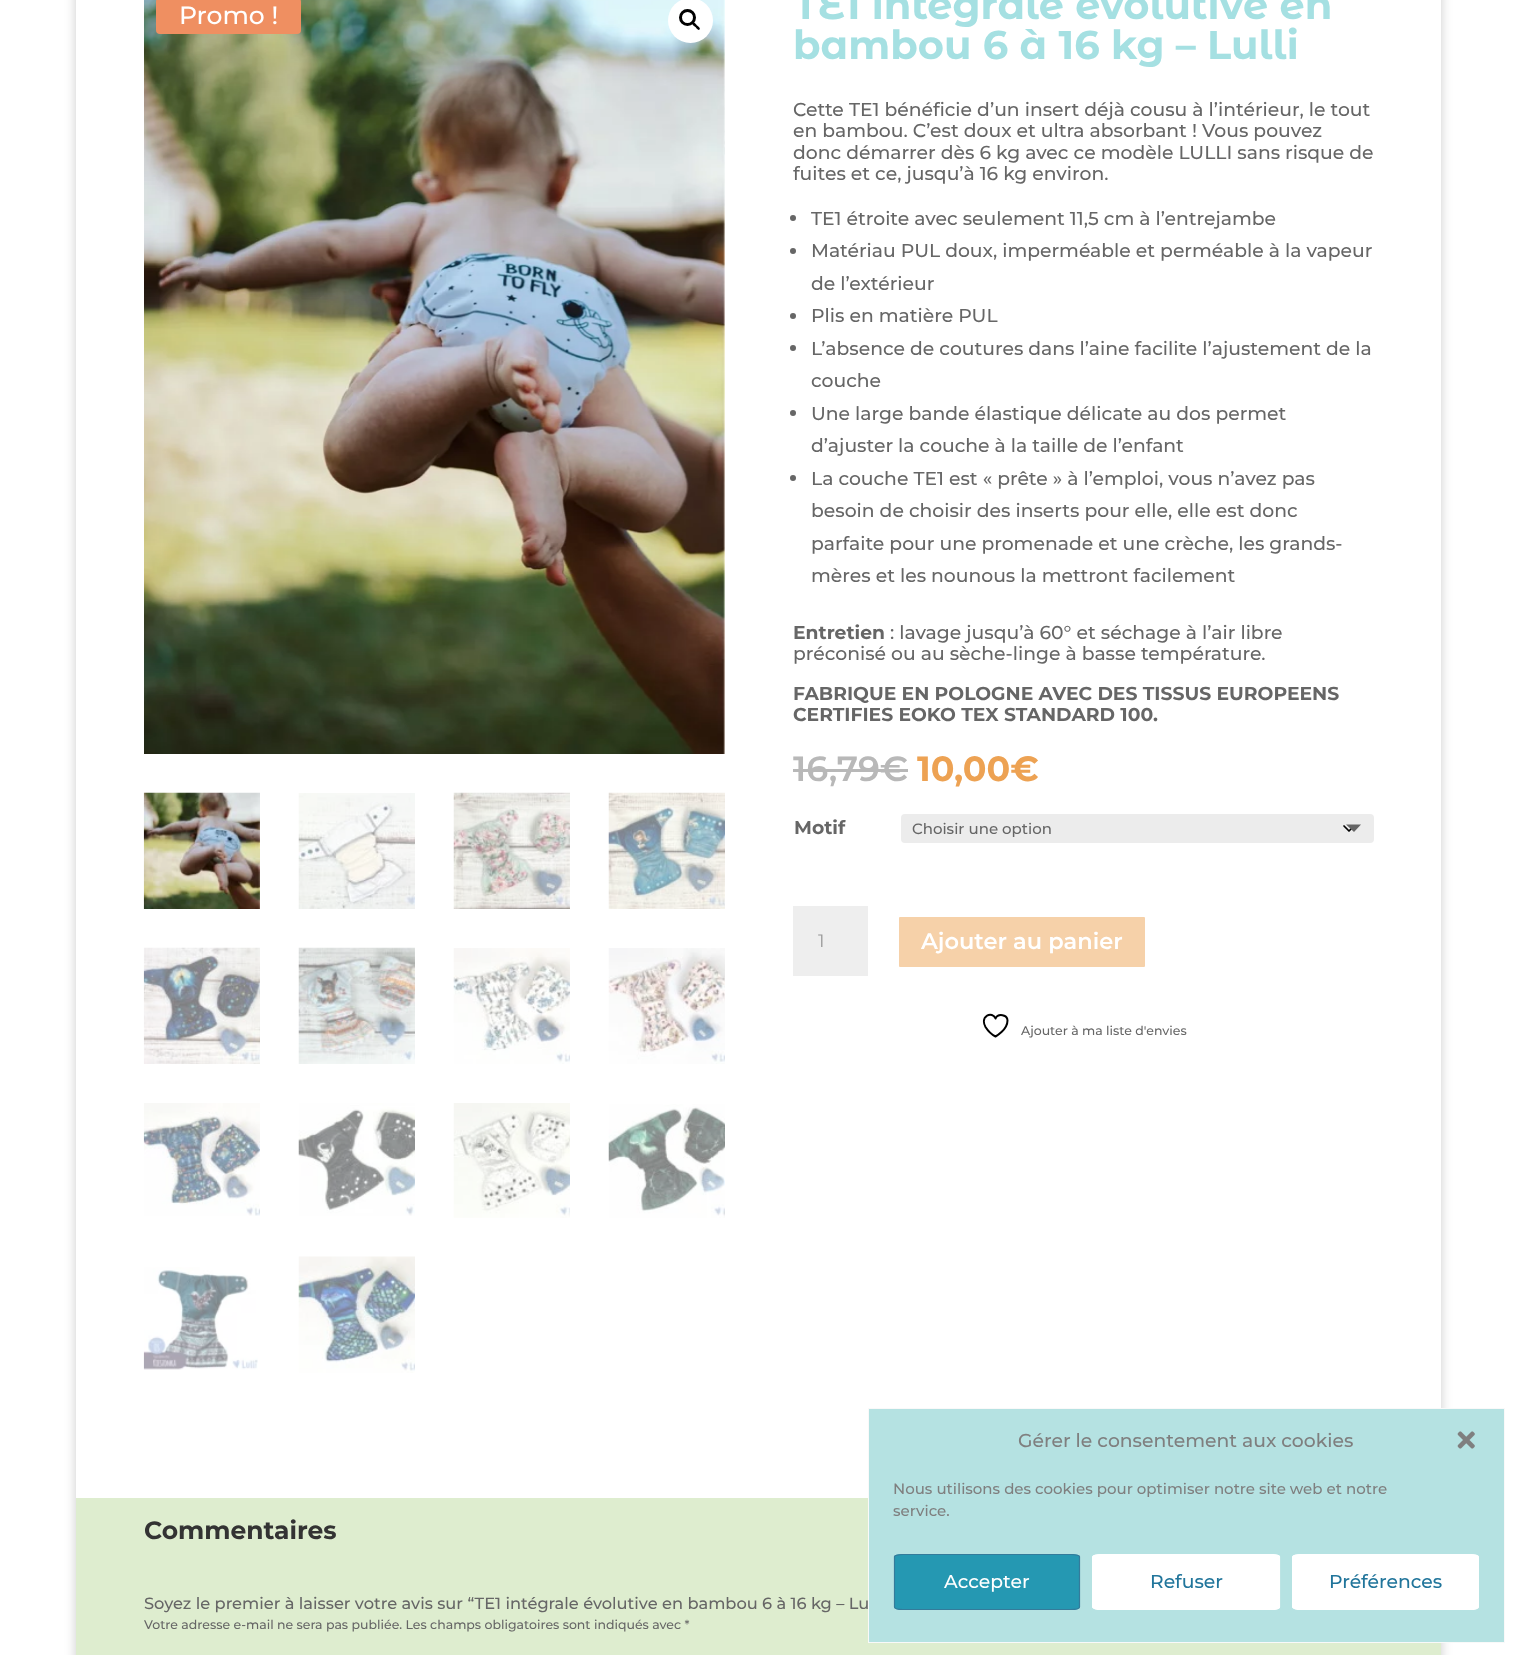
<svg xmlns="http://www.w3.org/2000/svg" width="1517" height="1655">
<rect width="100%" height="100%" fill="#fff"/>
<rect x="76" y="-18" width="1365" height="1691" fill="#00000033" filter="blur(6px)"/>
<rect x="76" width="1365" height="1498" fill="#fff"/>
<image x="724" y="37" width="1" height="366" href="media/2.png"/>
<image x="144" y="0" width="581" height="754" href="media/1.png"/>
<circle cx="690.5" cy="20.5" r="22.5" fill="#fff"/>
<circle cx="687.5" cy="17.5" r="7" fill="none" stroke="#000" stroke-width="3"/>
<path d="M692.5 22.5c1.5-1.5 4 2 4.5 3c1 .5 4 3 2.5 4c-1 1.5-3.5-1.5-4-2.5c-1-.5-4.5-3-3-4.5z" fill="#000"/>
<image x="143" y="792" width="117" height="117" href="media/3.png"/>
<image x="298" y="793" width="117" height="116" href="media/4.png"/>
<image x="453" y="792" width="117" height="117" href="media/5.png"/>
<image x="608" y="792" width="117" height="117" href="media/6.png"/>
<image x="143" y="947" width="117" height="117" href="media/7.png"/>
<image x="298" y="947" width="117" height="117" href="media/8.png"/>
<image x="453" y="948" width="117" height="116" href="media/9.png"/>
<image x="608" y="948" width="117" height="116" href="media/10.png"/>
<image x="143" y="1103" width="117" height="113" href="media/11.png"/>
<image x="298" y="1103" width="117" height="113" href="media/12.png"/>
<image x="453" y="1103" width="117" height="115" href="media/13.png"/>
<image x="608" y="1104" width="117" height="114" href="media/14.png"/>
<image x="143" y="1267" width="115" height="103" href="media/15.png"/>
<image x="298" y="1256" width="117" height="117" href="media/16.png"/>
<rect x="156" y="-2" width="145" height="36" rx="4" fill="#ef8f61"/>
<text x="179" y="24" style="font-family:Montserrat;font-size:25px;font-weight:100;fill:#fff">Promo !</text>
<text x="793" y="19" style="font-family:Montserrat Alternates;font-size:40px;font-weight:bold;fill:#a5e0e2">TE1 intégrale évolutive en</text>
<text x="793" y="59" style="font-family:Montserrat Alternates;font-size:40px;font-weight:bold;fill:#a5e0e2">bambou 6 à 16 kg – Lulli</text>
<text x="793" y="116" style="font-family:Montserrat;font-size:18.75px;font-weight:100;fill:#666">Cette TE1 bénéficie d’un insert déjà cousu à l’intérieur, le tout</text>
<text x="793" y="137" style="font-family:Montserrat;font-size:18.75px;font-weight:100;fill:#666">en bambou. C’est doux et ultra absorbant ! Vous pouvez</text>
<text x="793" y="159" style="font-family:Montserrat;font-size:18.75px;font-weight:100;fill:#666">donc démarrer dès 6 kg avec ce modèle LULLI sans risque de</text>
<text x="793" y="180" style="font-family:Montserrat;font-size:18.75px;font-weight:100;fill:#666">fuites et ce, jusqu’à 16 kg environ.</text>
<circle cx="793" cy="218" r="3" fill="#666"/>
<text x="811" y="225" style="font-family:Montserrat;font-size:18.75px;font-weight:100;fill:#666">TE1 étroite avec seulement 11,5 cm à l’entrejambe</text>
<circle cx="793" cy="251" r="3" fill="#666"/>
<text x="811" y="257" style="font-family:Montserrat;font-size:18.75px;font-weight:100;fill:#666">Matériau PUL doux, imperméable et perméable à la vapeur</text>
<text x="811" y="290" style="font-family:Montserrat;font-size:18.75px;font-weight:100;fill:#666">de l’extérieur</text>
<circle cx="793" cy="316" r="3" fill="#666"/>
<text x="811" y="322" style="font-family:Montserrat;font-size:18.75px;font-weight:100;fill:#666">Plis en matière PUL</text>
<circle cx="793" cy="348" r="3" fill="#666"/>
<text x="811" y="355" style="font-family:Montserrat;font-size:18.75px;font-weight:100;fill:#666">L’absence de coutures dans l’aine facilite l’ajustement de la</text>
<text x="811" y="387" style="font-family:Montserrat;font-size:18.75px;font-weight:100;fill:#666">couche</text>
<circle cx="793" cy="413" r="3" fill="#666"/>
<text x="811" y="420" style="font-family:Montserrat;font-size:18.75px;font-weight:100;fill:#666">Une large bande élastique délicate au dos permet</text>
<text x="811" y="452" style="font-family:Montserrat;font-size:18.75px;font-weight:100;fill:#666">d’ajuster la couche à la taille de l’enfant</text>
<circle cx="793" cy="478" r="3" fill="#666"/>
<text x="811" y="485" style="font-family:Montserrat;font-size:18.75px;font-weight:100;fill:#666">La couche TE1 est « prête » à l’emploi, vous n’avez pas</text>
<text x="811" y="517" style="font-family:Montserrat;font-size:18.75px;font-weight:100;fill:#666">besoin de choisir des inserts pour elle, elle est donc</text>
<text x="811" y="550" style="font-family:Montserrat;font-size:18.75px;font-weight:100;fill:#666">parfaite pour une promenade et une crèche, les grands-</text>
<text x="811" y="582" style="font-family:Montserrat;font-size:18.75px;font-weight:100;fill:#666">mères et les nounous la mettront facilement</text>
<text x="793" y="639" style="font-family:'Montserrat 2';font-size:18.75px;font-weight:100;fill:#666">Entretien</text>
<text x="890" y="639" style="font-family:Montserrat;font-size:18.75px;font-weight:100;fill:#666">: lavage jusqu’à 60° et séchage à l’air libre</text>
<text x="793" y="660" style="font-family:Montserrat;font-size:18.75px;font-weight:100;fill:#666">préconisé ou au sèche-linge à basse température.</text>
<text x="793" y="700" style="font-family:'Montserrat 2';font-size:18.75px;font-weight:100;fill:#666">FABRIQUE EN POLOGNE AVEC DES TISSUS EUROPEENS</text>
<text x="793" y="721" style="font-family:'Montserrat 2';font-size:18.75px;font-weight:100;fill:#666">CERTIFIES EOKO TEX STANDARD 100.</text>
<text x="793" y="781" style="font-family:'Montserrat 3';font-size:35px;font-weight:100;fill:#b8b8b8">16,79€</text>
<rect x="793" y="769" width="115" height="3" fill="#b8b8b8"/>
<text x="917" y="781" style="font-family:'Montserrat 2';font-size:35px;font-weight:100;fill:#eda253">10,00€</text>
<text x="794" y="834" style="font-family:'Montserrat 2';font-size:18.75px;font-weight:100;fill:#666">Motif</text>
<rect x="901" y="814" width="473" height="29" rx="4" fill="#ececec"/>
<path d="M1344 826l5 5l5-5" fill="none" stroke="#000" stroke-width="1.7" stroke-linecap="round" stroke-linejoin="round"/>
<text x="912" y="834" style="font-family:Montserrat;font-size:15px;font-weight:100;fill:#666">Choisir une option</text>
<path d="M1346 824.5h15l-7 7.5z" fill="#666"/>
<rect x="793" y="906" width="75" height="70" fill="#eee"/>
<text x="818" y="947" style="font-family:'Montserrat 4';font-size:18px;font-weight:100;fill:#999">1</text>
<rect x="897.5" y="915.5" width="249" height="53" rx="2.5" fill="#f6d1a9" stroke="#fff" stroke-width="3"/>
<text x="921" y="949" style="font-family:'Montserrat 3';font-size:22.5px;font-weight:100;fill:#fff">Ajouter au panier</text>
<path d="M1007.5 1020.5c0-6-9.5-7.5-12-2c-3-7.5-16-3-10 8.5c2.5 4 6 7.5 10 9.5c0 0 12-6.5 12-16z" fill="none" stroke="#000" stroke-width="2" stroke-linecap="round" stroke-linejoin="round"/>
<text x="1021" y="1035" style="font-family:Montserrat;font-size:12.5px;font-weight:100;fill:#666">Ajouter à ma liste d'envies</text>
<rect x="76" y="1498" width="1365" height="157" fill="#deedcf"/>
<text x="144" y="1539" style="font-family:'Montserrat 2';font-size:25px;font-weight:100;fill:#333">Commentaires</text>
<text x="144" y="1609" style="font-family:Montserrat;font-size:16.25px;font-weight:100;fill:#666">Soyez le premier à laisser votre avis sur “TE1 intégrale évolutive en bambou 6 à 16 kg – Lu</text>
<text x="144" y="1629" style="font-family:Montserrat;font-size:12.5px;font-weight:100;fill:#666">Votre adresse e-mail ne sera pas publiée. Les champs obligatoires sont indiqués avec *</text>
<rect x="868.5" y="1408.5" width="636" height="234" fill="#b5e2e2" stroke="#f9f9f9"/>
<text x="1018" y="1447" style="font-family:Montserrat;font-size:18.75px;font-weight:100;fill:#7f7f7f">Gérer le consentement aux cookies</text>
<image x="1457" y="1431" width="18" height="18" href="media/17.png"/>
<text x="893" y="1494" style="font-family:Montserrat;font-size:15px;font-weight:100;fill:#7f7f7f">Nous utilisons des cookies pour optimiser notre site web et notre</text>
<text x="893" y="1516" style="font-family:Montserrat;font-size:15px;font-weight:100;fill:#7f7f7f">service.</text>
<path d="M903 1554h168c5 0 9 1 9 3v50c0 2-4 3-9 3h-168c-5 0-9-1-9-3v-50c0-2 4-3 9-3z" fill="#2598b2"/>
<path d="M903 1554.5h167.5c5 0 9 1 9 2v50.5c0 1.5-4 2.5-9 2.5h-167.5c-4.5 0-8.5-1-8.5-2.5v-50.5c0-1 4-2 8.5-2z" fill="none" stroke="#347b9b" stroke-width="1.2"/>
<text x="944" y="1588" style="font-family:Montserrat;font-size:18.75px;font-weight:100;fill:#fff">Accepter</text>
<path d="M1102 1554h169c5 0 9 1 9 3v50c0 2-4 3-9 3h-169c-5 0-10-1-10-3v-50c0-2 5-3 10-3z" fill="#fff"/>
<path d="M1102 1554.5h168.5c5 0 9 1 9 2v50.5c0 1.5-4 2.5-9 2.5h-168.5c-5 0-9-1-9-2.5v-50.5c0-1 4-2 9-2z" fill="none" stroke="#fff" stroke-width="1.2"/>
<text x="1150" y="1588" style="font-family:Montserrat;font-size:18.75px;font-weight:100;fill:#21759b">Refuser</text>
<path d="M1302 1554h167c6 0 10 1 10 3v50c0 2-4 3-10 3h-167c-5 0-10-1-10-3v-50c0-2 5-3 10-3z" fill="#fff"/>
<path d="M1302 1554.5h167.5c4.5 0 8.5 1 8.5 2v50.5c0 1.5-4 2.5-8.5 2.5h-167.5c-5 0-9-1-9-2.5v-50.5c0-1 4-2 9-2z" fill="none" stroke="#fff" stroke-width="1.2"/>
<text x="1329" y="1588" style="font-family:Montserrat;font-size:18.75px;font-weight:100;fill:#21759b">Préférences</text>
</svg>
